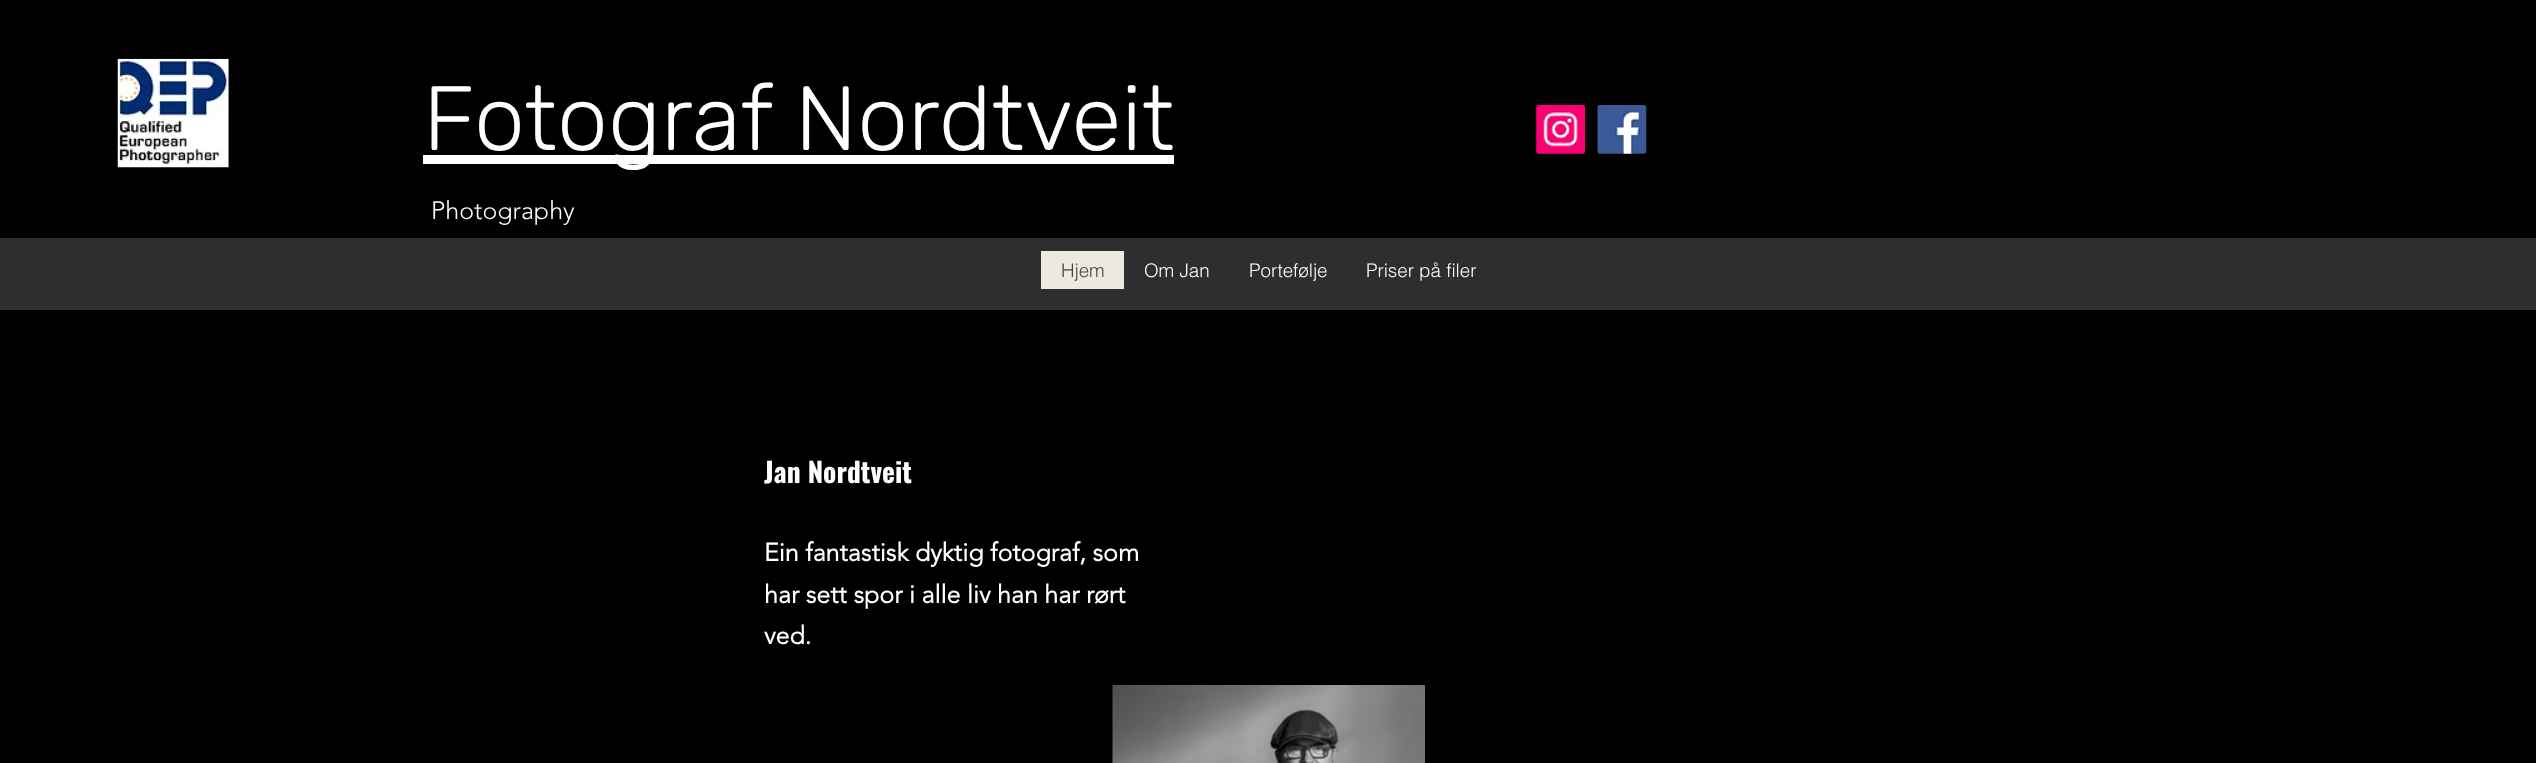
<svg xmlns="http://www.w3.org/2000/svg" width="2536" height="763">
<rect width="100%" height="100%" fill="#000"/>
<image x="117" y="58" width="112" height="110" href="media/1.png"/>
<rect x="423" y="155" width="751" height="9" fill="#fff"/>
<text x="423" y="150" style="font-family:Rubik;font-size:91.25px;font-weight:300;fill:#fff">Fotograf Nordtveit</text>
<image x="1536" y="105" width="49" height="49" href="media/2.png"/>
<image x="1597" y="105" width="50" height="49" href="media/3.png"/>
<text x="431" y="219" style="font-family:'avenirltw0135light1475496';font-size:25px;font-weight:300;fill:#fff">Photography</text>
<rect y="238" width="2536" height="72" fill="#2f2e2e"/>
<rect x="1041" y="251" width="83" height="38" fill="#ede9e1"/>
<text x="1061" y="277" style="font-family:helvetica;font-size:18.75px;font-weight:300;fill:#444">Hjem</text>
<text x="1144" y="277" style="font-family:helvetica;font-size:18.75px;font-weight:300;fill:#fff">Om Jan</text>
<text x="1249" y="277" style="font-family:helvetica;font-size:18.75px;font-weight:300;fill:#fff">Portefølje</text>
<text x="1366" y="277" style="font-family:helvetica;font-size:18.75px;font-weight:300;fill:#fff">Priser på filer</text>
<text x="764" y="483" style="font-family:Oswald;font-size:27.5px;font-weight:bold;fill:#fff">Jan Nordtveit</text>
<text x="764" y="561" style="font-family:'avenirltw0135light1475496';font-size:25px;font-weight:bold;fill:#fff">Ein fantastisk dyktig fotograf, som</text>
<text x="764" y="603" style="font-family:'avenirltw0135light1475496';font-size:25px;font-weight:bold;fill:#fff">har sett spor i alle liv han har rørt</text>
<text x="764" y="644" style="font-family:'avenirltw0135light1475496';font-size:25px;font-weight:bold;fill:#fff">ved.</text>
<image x="1112" y="685" width="313" height="78" href="media/4.png"/>
</svg>
